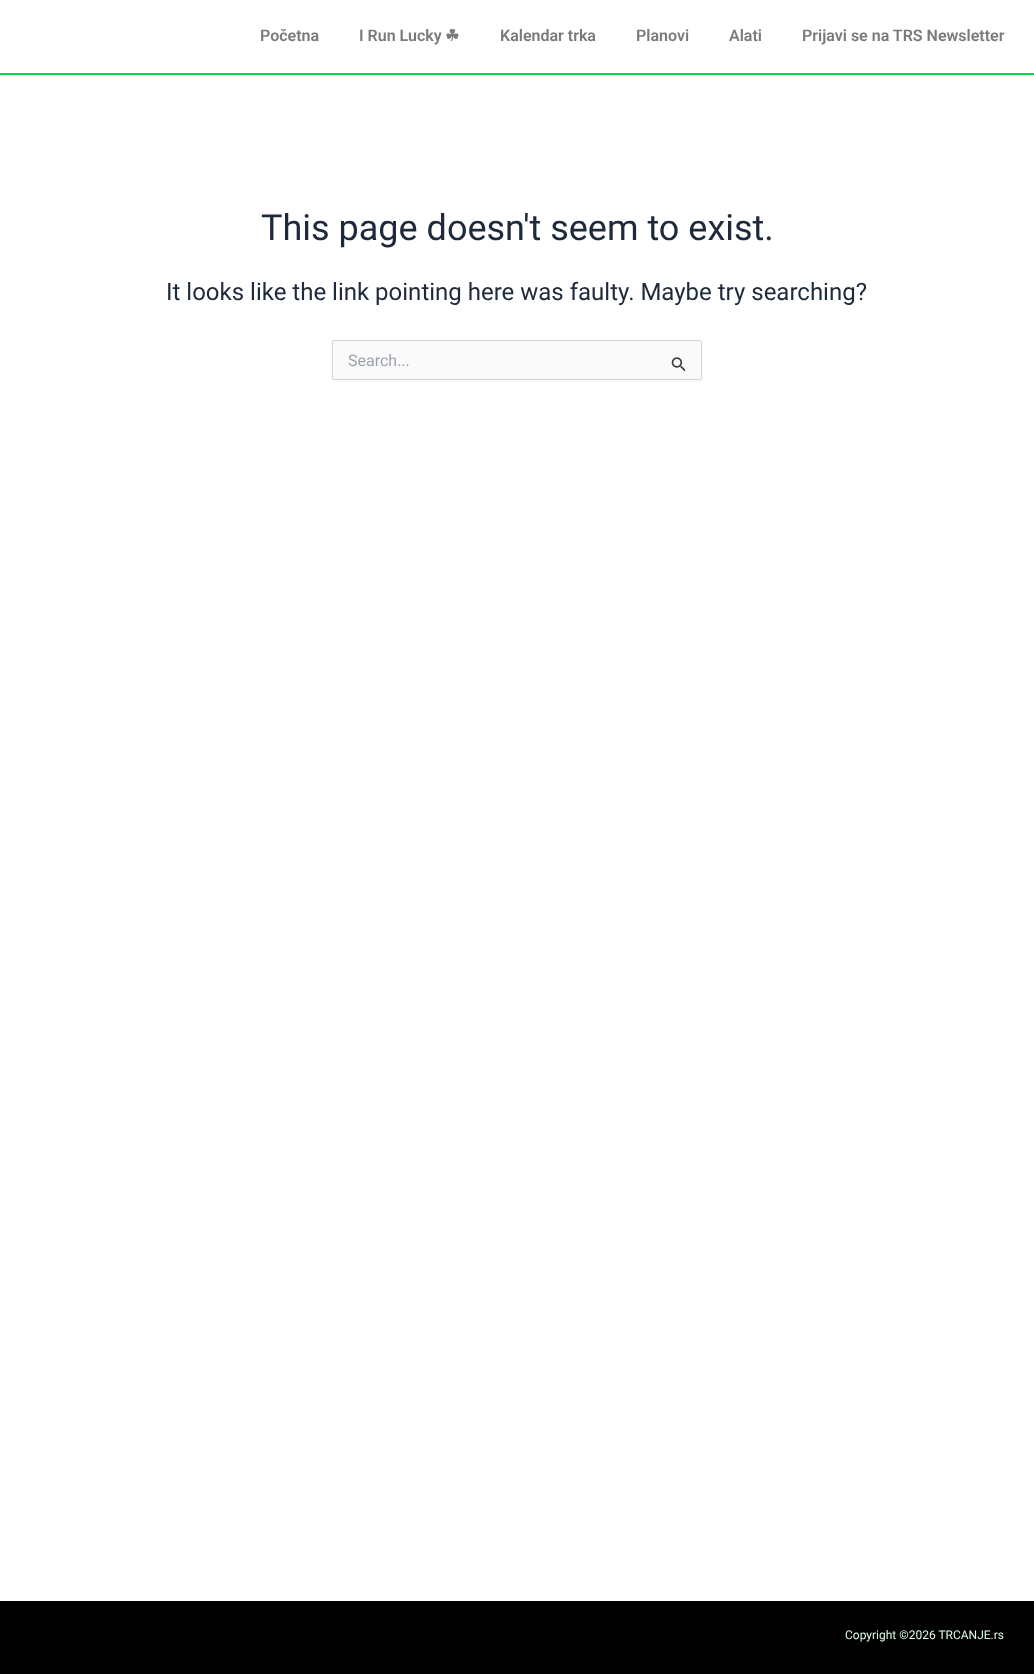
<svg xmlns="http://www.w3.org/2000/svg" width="1034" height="1674">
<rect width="100%" height="100%" fill="#fff"/>
<rect y="73" width="1034" height="2" fill="#0bda51"/>
<text x="260" y="41" style="font-family:Roboto;font-size:16px;font-weight:600;fill:#7a7a7a">Početna</text>
<text x="359" y="41" style="font-family:Roboto;font-size:16px;font-weight:600;fill:#7a7a7a">I Run Lucky</text>
<text x="445" y="41" style="font-family:DejaVu Sans;font-size:16px;font-weight:bold;fill:#7a7a7a">☘︎</text>
<text x="500" y="41" style="font-family:Roboto;font-size:16px;font-weight:600;fill:#7a7a7a">Kalendar trka</text>
<text x="636" y="41" style="font-family:Roboto;font-size:16px;font-weight:600;fill:#7a7a7a">Planovi</text>
<text x="729" y="41" style="font-family:Roboto;font-size:16px;font-weight:600;fill:#7a7a7a">Alati</text>
<text x="802" y="41" style="font-family:Roboto;font-size:16px;font-weight:600;fill:#7a7a7a">Prijavi se na TRS Newsletter</text>
<text x="261" y="240" style="font-family:Roboto;font-size:36px;fill:#1e293b">This page doesn't seem to exist.</text>
<text x="166" y="300" style="font-family:Roboto;font-size:24px;fill:#1e293b">It looks like the link pointing here was faulty. Maybe try searching?</text>
<rect x="332" y="341" width="370" height="40" rx="2" fill="#0000000d" filter="blur(1px)"/>
<rect x="332.5" y="340.5" width="369" height="39" rx="1.5" fill="#fafafa" stroke="#d1d5db"/>
<text x="348" y="366" style="font-family:Roboto;font-size:16px;fill:#9ca3af">Search...</text>
<image x="671" y="357" width="14" height="15" href="media/1.png"/>
<rect y="1601" width="1034" height="73" fill="#000"/>
<text x="845" y="1639" style="font-family:Roboto;font-size:12px;fill:#dbfae5">Copyright ©2026 TRCANJE.rs</text>
</svg>
